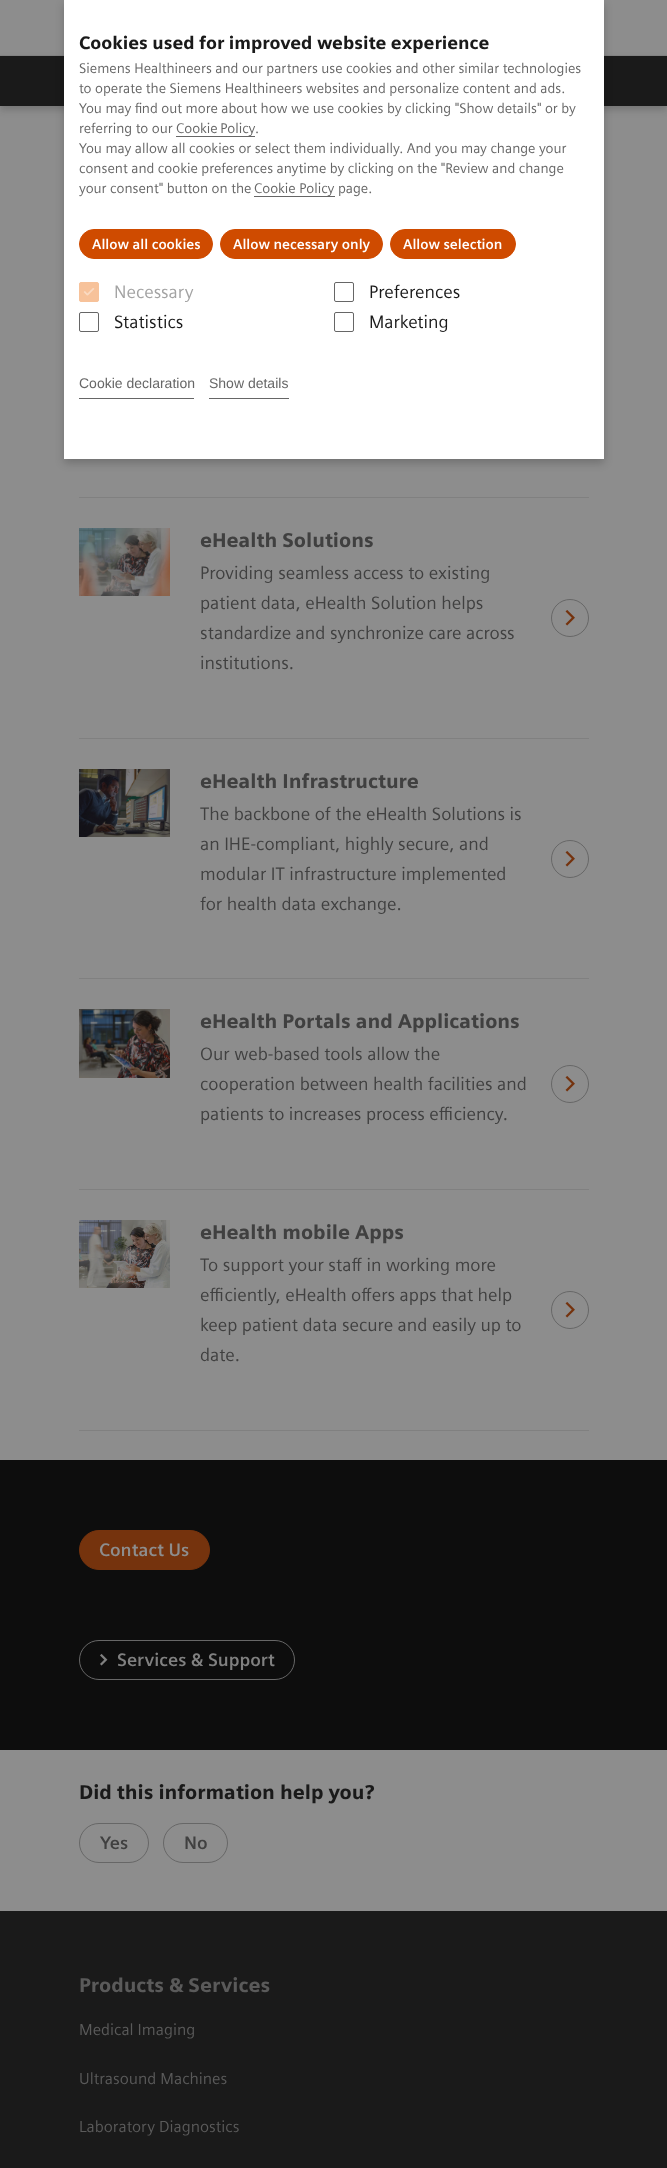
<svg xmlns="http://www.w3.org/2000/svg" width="667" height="2168">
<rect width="100%" height="100%" fill="#8d8d8d"/>
<rect y="55" width="667" height="1" fill="#848484"/>
<rect y="60" width="667" height="50" fill="#1b1b1b33" filter="blur(3.5px)"/>
<rect y="56" width="667" height="50" fill="#1a1a1a"/>
<rect x="64" y="4" width="540" height="459" fill="#00000033" filter="blur(4.5px)"/>
<rect x="64" width="540" height="459" fill="#fff"/>
<text x="79" y="49" style="font-family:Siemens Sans;font-size:18px;font-weight:900;fill:#1a1a1a">Cookies used for improved website experience</text>
<text x="79" y="73" style="font-family:Siemens Sans;font-size:14px;fill:#666">Siemens Healthineers and our partners use cookies and other similar technologies</text>
<text x="79" y="93" style="font-family:Siemens Sans;font-size:14px;fill:#666">to operate the Siemens Healthineers websites and personalize content and ads.</text>
<text x="79" y="113" style="font-family:Siemens Sans;font-size:14px;fill:#666">You may find out more about how we use cookies by clicking "Show details" or by</text>
<text x="79" y="133" style="font-family:Siemens Sans;font-size:14px;fill:#666">referring to our</text>
<rect x="176" y="136" width="79" height="1" fill="#666"/>
<text x="176" y="133" word-spacing="-1" style="font-family:Siemens Sans;font-size:14px;fill:#666">Cookie Policy</text>
<text x="255" y="133" style="font-family:Siemens Sans;font-size:14px;fill:#666">.</text>
<text x="79" y="153" style="font-family:Siemens Sans;font-size:14px;fill:#666">You may allow all cookies or select them individually. And you may change your</text>
<text x="79" y="173" style="font-family:Siemens Sans;font-size:14px;fill:#666">consent and cookie preferences anytime by clicking on the "Review and change</text>
<text x="79" y="193" style="font-family:Siemens Sans;font-size:14px;fill:#666">your consent" button on the</text>
<rect x="254" y="196" width="81" height="1" fill="#666"/>
<text x="254" y="193" style="font-family:Siemens Sans;font-size:14px;fill:#666">Cookie Policy page.</text>
<rect x="79.5" y="229.5" width="133" height="29" rx="14.5" fill="#cf4b00" stroke="#cf4b00"/>
<text x="92" y="249" style="font-family:Siemens Sans;font-size:14px;font-weight:bold;fill:#fff">Allow all cookies</text>
<rect x="220.5" y="229.5" width="162" height="29" rx="14.5" fill="#cf4b00" stroke="#cf4b00"/>
<text x="233" y="249" style="font-family:Siemens Sans;font-size:14px;font-weight:bold;fill:#fff">Allow necessary only</text>
<rect x="390.5" y="229.5" width="125" height="29" rx="14.5" fill="#cf4b00" stroke="#cf4b00"/>
<text x="403" y="249" style="font-family:Siemens Sans;font-size:14px;font-weight:bold;fill:#fff">Allow selection</text>
<rect x="79.5" y="282.5" width="19" height="19" rx="1.5" fill="#f7c29a" stroke="#f7c29a"/>
<image x="83" y="288" width="12" height="8" href="media/1.png"/>
<text x="114" y="298" style="font-family:Siemens Sans;font-size:18px;fill:#a3a3a3">Necessary</text>
<rect x="334.5" y="282.5" width="19" height="19" rx="1.5" fill="none" stroke="#666"/>
<text x="369" y="298" style="font-family:Siemens Sans;font-size:18px;fill:#1a1a1a">Preferences</text>
<rect x="79.5" y="312.5" width="19" height="19" rx="1.5" fill="none" stroke="#666"/>
<text x="114" y="328" style="font-family:Siemens Sans;font-size:18px;fill:#1a1a1a">Statistics</text>
<rect x="334.5" y="312.5" width="19" height="19" rx="1.5" fill="none" stroke="#666"/>
<text x="369" y="328" style="font-family:Siemens Sans;font-size:18px;fill:#1a1a1a">Marketing</text>
<rect x="79" y="398" width="115" height="1" fill="#666"/>
<text x="79" y="388" style="font-family:Liberation Sans;font-size:14px;fill:#666">Cookie declaration</text>
<rect x="209" y="398" width="80" height="1" fill="#666"/>
<text x="209" y="388" style="font-family:Liberation Sans;font-size:14px;fill:#666">Show details</text>
<rect x="79" y="497" width="510" height="1" fill="#808080"/>
<rect x="79" y="738" width="510" height="1" fill="#808080"/>
<image x="79" y="528" width="91" height="68" href="media/2.png"/>
<text x="200" y="547" style="font-family:Siemens Sans;font-size:20px;font-weight:900;fill:#404040">eHealth Solutions</text>
<text x="200" y="579" style="font-family:Siemens Sans;font-size:18px;fill:#404040">Providing seamless access to existing</text>
<text x="200" y="609" style="font-family:Siemens Sans;font-size:18px;fill:#404040">patient data, eHealth Solution helps</text>
<text x="200" y="639" style="font-family:Siemens Sans;font-size:18px;fill:#404040">standardize and synchronize care across</text>
<text x="200" y="669" style="font-family:Siemens Sans;font-size:18px;fill:#404040">institutions.</text>
<circle cx="570" cy="618" r="18.5" fill="none" stroke="#676767"/>
<image x="565" y="610" width="10" height="16" href="media/3.png"/>
<rect x="79" y="978" width="510" height="1" fill="#808080"/>
<image x="79" y="769" width="91" height="68" href="media/4.png"/>
<text x="200" y="788" style="font-family:Siemens Sans;font-size:20px;font-weight:900;fill:#404040">eHealth Infrastructure</text>
<text x="200" y="820" style="font-family:Siemens Sans;font-size:18px;fill:#404040">The backbone of the eHealth Solutions is</text>
<text x="200" y="850" style="font-family:Siemens Sans;font-size:18px;fill:#404040">an IHE-compliant, highly secure, and</text>
<text x="200" y="880" style="font-family:Siemens Sans;font-size:18px;fill:#404040">modular IT infrastructure implemented</text>
<text x="200" y="910" style="font-family:Siemens Sans;font-size:18px;fill:#404040">for health data exchange.</text>
<circle cx="570" cy="859" r="18.5" fill="none" stroke="#676767"/>
<image x="565" y="851" width="10" height="16" href="media/3.png"/>
<rect x="79" y="1189" width="510" height="1" fill="#808080"/>
<image x="79" y="1009" width="91" height="69" href="media/5.png"/>
<text x="200" y="1028" style="font-family:Siemens Sans;font-size:20px;font-weight:900;fill:#404040">eHealth Portals and Applications</text>
<text x="200" y="1060" style="font-family:Siemens Sans;font-size:18px;fill:#404040">Our web-based tools allow the</text>
<text x="200" y="1090" style="font-family:Siemens Sans;font-size:18px;fill:#404040">cooperation between health facilities and</text>
<text x="200" y="1120" style="font-family:Siemens Sans;font-size:18px;fill:#404040">patients to increases process efficiency.</text>
<circle cx="570" cy="1084" r="18.5" fill="none" stroke="#676767"/>
<image x="565" y="1076" width="10" height="16" href="media/3.png"/>
<rect x="79" y="1430" width="510" height="1" fill="#808080"/>
<image x="79" y="1220" width="91" height="68" href="media/6.png"/>
<text x="200" y="1239" style="font-family:Siemens Sans;font-size:20px;font-weight:900;fill:#404040">eHealth mobile Apps</text>
<text x="200" y="1271" style="font-family:Siemens Sans;font-size:18px;fill:#404040">To support your staff in working more</text>
<text x="200" y="1301" style="font-family:Siemens Sans;font-size:18px;fill:#404040">efficiently, eHealth offers apps that help</text>
<text x="200" y="1331" style="font-family:Siemens Sans;font-size:18px;fill:#404040">keep patient data secure and easily up to</text>
<text x="200" y="1361" style="font-family:Siemens Sans;font-size:18px;fill:#404040">date.</text>
<circle cx="570" cy="1310" r="18.5" fill="none" stroke="#676767"/>
<image x="565" y="1302" width="10" height="16" href="media/3.png"/>
<rect y="1460" width="667" height="290" fill="#0d0d0d"/>
<rect x="79.5" y="1530.5" width="130" height="39" rx="19.5" fill="#75330d" stroke="#75330d"/>
<text x="99" y="1556" style="font-family:Siemens Sans;font-size:18px;font-weight:bold;fill:#8d8d8d">Contact Us</text>
<rect x="79.5" y="1640.5" width="215" height="39" rx="19.5" fill="none" stroke="#676767"/>
<image x="100" y="1653" width="8" height="13" href="media/7.png"/>
<text x="117" y="1666" style="font-family:Siemens Sans;font-size:18px;font-weight:bold;fill:#808080">Services &amp; Support</text>
<text x="79" y="1799" style="font-family:Siemens Sans;font-size:20px;font-weight:900;fill:#1a1a1a">Did this information help you?</text>
<rect x="79.5" y="1823.5" width="69" height="39" rx="19.5" fill="none" stroke="#676767"/>
<text x="100" y="1849" style="font-family:Siemens Sans;font-size:18px;font-weight:bold;fill:#404040">Yes</text>
<rect x="163.5" y="1823.5" width="64" height="39" rx="19.5" fill="none" stroke="#676767"/>
<text x="184" y="1849" style="font-family:Siemens Sans;font-size:18px;font-weight:bold;fill:#404040">No</text>
<rect y="1911" width="667" height="257" fill="#1a1a1a"/>
<text x="79" y="1992" style="font-family:Siemens Sans;font-size:20px;font-weight:900;fill:#5a5a5a">Products &amp; Services</text>
<text x="79" y="2035" style="font-family:Siemens Sans;font-size:16px;fill:#5a5a5a">Medical Imaging</text>
<text x="79" y="2084" style="font-family:Siemens Sans;font-size:16px;fill:#5a5a5a">Ultrasound Machines</text>
<text x="79" y="2132" style="font-family:Siemens Sans;font-size:16px;fill:#5a5a5a">Laboratory Diagnostics</text>
</svg>
